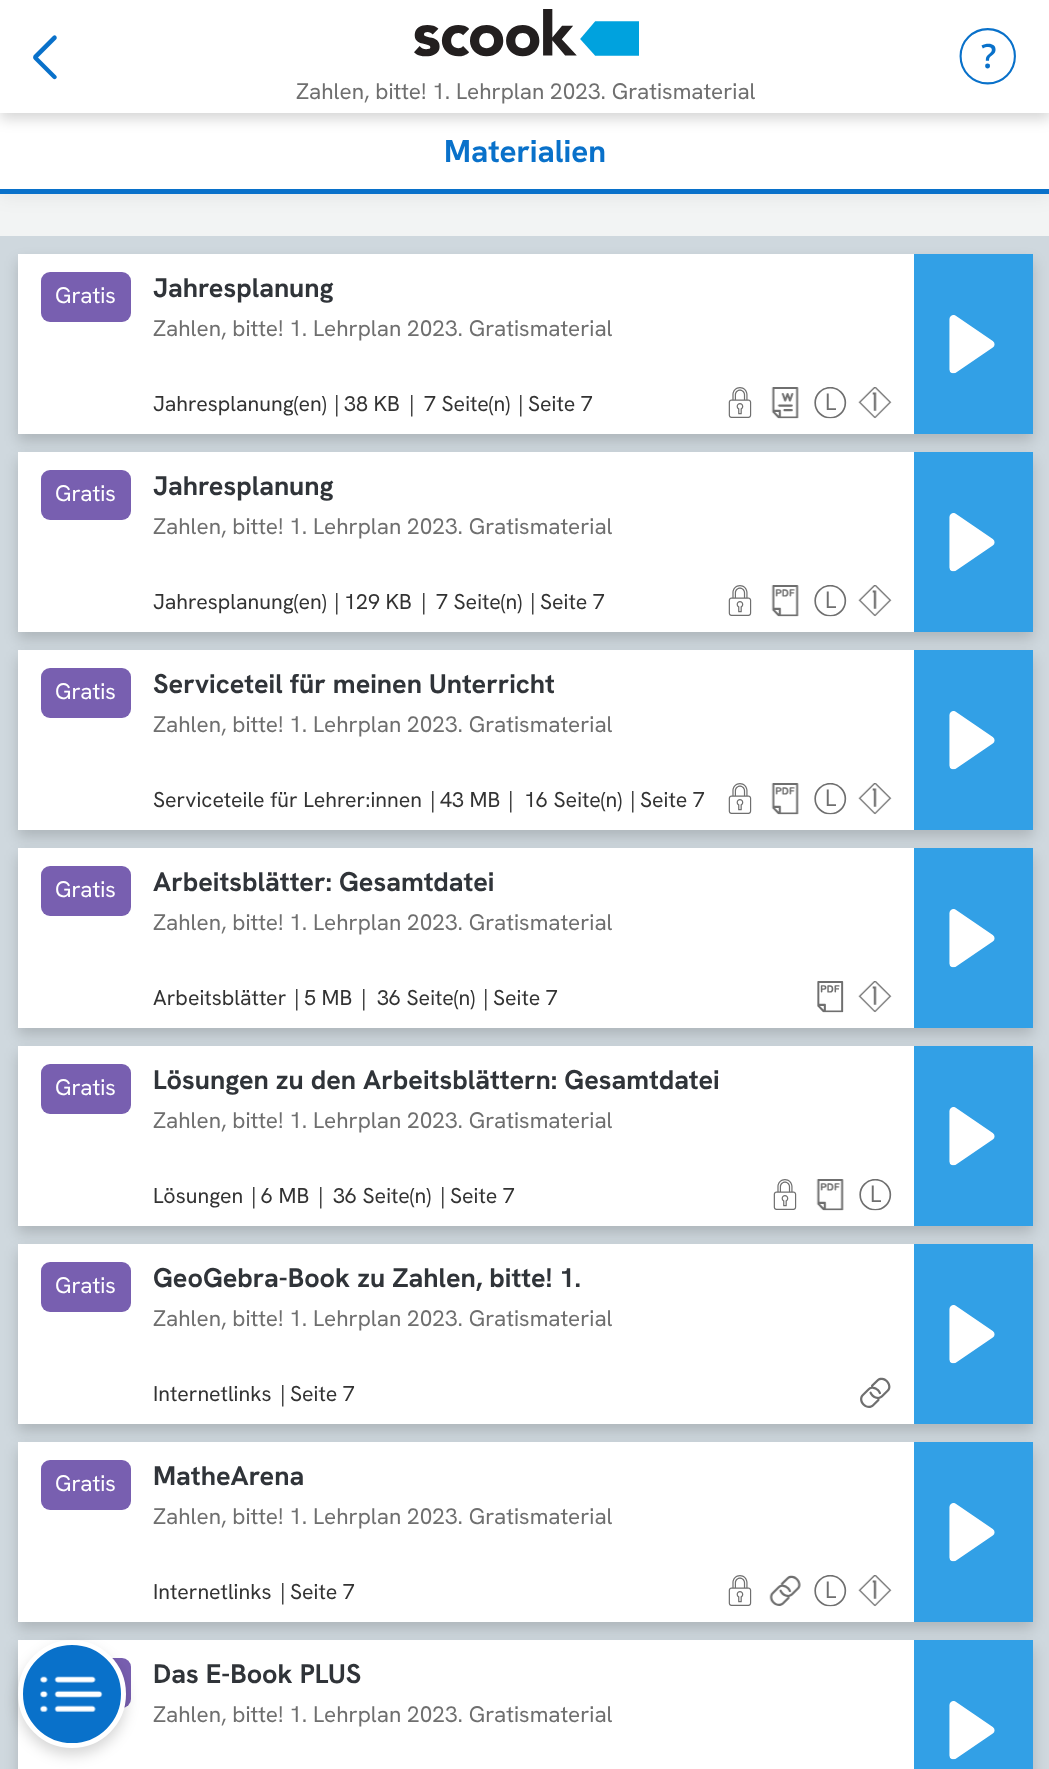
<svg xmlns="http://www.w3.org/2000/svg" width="1049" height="1769">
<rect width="100%" height="100%" fill="#f2f4f4"/>
<rect y="117" width="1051" height="81" fill="#0000000d" filter="blur(9px)"/>
<rect y="113" width="1049" height="76" fill="#fff"/>
<rect y="7" width="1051" height="112" fill="#00000029" filter="blur(7px)"/>
<rect width="1049" height="113" fill="#fff"/>
<path d="M34 55l19-19c1-1 2.5-1 3 0c1 1 1 2.5 0 3.5l-19 19c-1 1-2.5 1-3 0c-1-1-1-2.5 0-3.5z" fill="#0971ca"/>
<path d="M37 56.5l19 19c1 1 1 2.5 0 3c-.5 1-2 1-3 0l-19-19c-1-1-1-2.5 0-3c.5-1 2-1 3 0z" fill="#0971ca"/>
<image x="414" y="9" width="225" height="48" href="media/1.png"/>
<image x="959" y="28" width="57" height="57" href="media/2.png"/>
<text x="296" y="99" style="font-family:Hanken Grotesk;font-size:22.5px;fill:#6f6f6f">Zahlen, bitte! 1. Lehrplan 2023. Gratismaterial</text>
<rect y="189" width="1049" height="5" fill="#0971ca"/>
<text x="444" y="162" style="font-family:Hanken Grotesk;font-size:31.5px;font-weight:bold;fill:#0971ca">Materialien</text>
<rect y="236" width="1049" height="1533" fill="#cfd8de"/>
<rect x="18" y="261" width="1015" height="180" fill="#00000029" filter="blur(7px)"/>
<rect x="18" y="254" width="896" height="180" fill="#fff"/>
<rect x="41" y="272" width="90" height="50" rx="9" fill="#785fb0"/>
<text x="55" y="303" style="font-family:Hanken Grotesk;font-size:22.5px;fill:#fff">Gratis</text>
<text x="153" y="297" style="font-family:Hanken Grotesk;font-size:27px;font-weight:bold;fill:#303439">Jahresplanung</text>
<text x="153" y="336" style="font-family:Hanken Grotesk;font-size:22.5px;fill:#6f6f6f">Zahlen, bitte! 1. Lehrplan 2023. Gratismaterial</text>
<text x="153" y="411" style="font-family:Hanken Grotesk;font-size:21.4px;fill:#333">Jahresplanung(en)</text>
<text x="334" y="411" style="font-family:Hanken Grotesk;font-size:21.4px;fill:#333">|</text>
<text x="344" y="411" style="font-family:Hanken Grotesk;font-size:21.4px;fill:#333">38 KB</text>
<text x="409" y="411" style="font-family:Hanken Grotesk;font-size:21.4px;fill:#333">|</text>
<text x="424" y="411" style="font-family:Hanken Grotesk;font-size:21.4px;fill:#333">7 Seite(n)</text>
<text x="518" y="411" style="font-family:Hanken Grotesk;font-size:21.4px;fill:#333">|</text>
<text x="528" y="411" style="font-family:Hanken Grotesk;font-size:21.4px;fill:#333">Seite 7</text>
<image x="728" y="387" width="24" height="31" href="media/3.png"/>
<image x="771" y="387" width="28" height="32" href="media/4.png"/>
<image x="814" y="387" width="33" height="32" href="media/5.png"/>
<image x="858" y="387" width="34" height="32" href="media/6.png"/>
<rect x="914" y="254" width="119" height="180" fill="#32a0e6"/>
<image x="949" y="315" width="46" height="59" href="media/7.png"/>
<rect x="18" y="459" width="1015" height="180" fill="#00000029" filter="blur(7px)"/>
<rect x="18" y="452" width="896" height="180" fill="#fff"/>
<rect x="41" y="470" width="90" height="50" rx="9" fill="#785fb0"/>
<text x="55" y="501" style="font-family:Hanken Grotesk;font-size:22.5px;fill:#fff">Gratis</text>
<text x="153" y="495" style="font-family:Hanken Grotesk;font-size:27px;font-weight:bold;fill:#303439">Jahresplanung</text>
<text x="153" y="534" style="font-family:Hanken Grotesk;font-size:22.5px;fill:#6f6f6f">Zahlen, bitte! 1. Lehrplan 2023. Gratismaterial</text>
<text x="153" y="609" style="font-family:Hanken Grotesk;font-size:21.4px;fill:#333">Jahresplanung(en)</text>
<text x="334" y="609" style="font-family:Hanken Grotesk;font-size:21.4px;fill:#333">|</text>
<text x="344" y="609" style="font-family:Hanken Grotesk;font-size:21.4px;fill:#333">129 KB</text>
<text x="421" y="609" style="font-family:Hanken Grotesk;font-size:21.4px;fill:#333">|</text>
<text x="436" y="609" style="font-family:Hanken Grotesk;font-size:21.4px;fill:#333">7 Seite(n)</text>
<text x="530" y="609" style="font-family:Hanken Grotesk;font-size:21.4px;fill:#333">|</text>
<text x="540" y="609" style="font-family:Hanken Grotesk;font-size:21.4px;fill:#333">Seite 7</text>
<image x="728" y="585" width="24" height="31" href="media/3.png"/>
<image x="771" y="585" width="28" height="32" href="media/8.png"/>
<image x="814" y="585" width="33" height="32" href="media/5.png"/>
<image x="858" y="585" width="34" height="32" href="media/6.png"/>
<rect x="914" y="452" width="119" height="180" fill="#32a0e6"/>
<image x="949" y="513" width="46" height="59" href="media/7.png"/>
<rect x="18" y="657" width="1015" height="180" fill="#00000029" filter="blur(7px)"/>
<rect x="18" y="650" width="896" height="180" fill="#fff"/>
<rect x="41" y="668" width="90" height="50" rx="9" fill="#785fb0"/>
<text x="55" y="699" style="font-family:Hanken Grotesk;font-size:22.5px;fill:#fff">Gratis</text>
<text x="153" y="693" style="font-family:Hanken Grotesk;font-size:27px;font-weight:bold;fill:#303439">Serviceteil für meinen Unterricht</text>
<text x="153" y="732" style="font-family:Hanken Grotesk;font-size:22.5px;fill:#6f6f6f">Zahlen, bitte! 1. Lehrplan 2023. Gratismaterial</text>
<text x="153" y="807" style="font-family:Hanken Grotesk;font-size:21.4px;fill:#333">Serviceteile für Lehrer:innen</text>
<text x="430" y="807" style="font-family:Hanken Grotesk;font-size:21.4px;fill:#333">|</text>
<text x="440" y="807" style="font-family:Hanken Grotesk;font-size:21.4px;fill:#333">43 MB</text>
<text x="508" y="807" style="font-family:Hanken Grotesk;font-size:21.4px;fill:#333">|</text>
<text x="524" y="807" style="font-family:Hanken Grotesk;font-size:21.4px;fill:#333">16 Seite(n)</text>
<text x="630" y="807" style="font-family:Hanken Grotesk;font-size:21.4px;fill:#333">|</text>
<text x="640" y="807" style="font-family:Hanken Grotesk;font-size:21.4px;fill:#333">Seite 7</text>
<image x="728" y="783" width="24" height="31" href="media/3.png"/>
<image x="771" y="783" width="28" height="32" href="media/8.png"/>
<image x="814" y="783" width="33" height="32" href="media/5.png"/>
<image x="858" y="783" width="34" height="32" href="media/6.png"/>
<rect x="914" y="650" width="119" height="180" fill="#32a0e6"/>
<image x="949" y="711" width="46" height="59" href="media/7.png"/>
<rect x="18" y="855" width="1015" height="180" fill="#00000029" filter="blur(7px)"/>
<rect x="18" y="848" width="896" height="180" fill="#fff"/>
<rect x="41" y="866" width="90" height="50" rx="9" fill="#785fb0"/>
<text x="55" y="897" style="font-family:Hanken Grotesk;font-size:22.5px;fill:#fff">Gratis</text>
<text x="153" y="891" style="font-family:Hanken Grotesk;font-size:27px;font-weight:bold;fill:#303439">Arbeitsblätter: Gesamtdatei</text>
<text x="153" y="930" style="font-family:Hanken Grotesk;font-size:22.5px;fill:#6f6f6f">Zahlen, bitte! 1. Lehrplan 2023. Gratismaterial</text>
<text x="153" y="1005" style="font-family:Hanken Grotesk;font-size:21.4px;fill:#333">Arbeitsblätter</text>
<text x="294" y="1005" style="font-family:Hanken Grotesk;font-size:21.4px;fill:#333">|</text>
<text x="304" y="1005" style="font-family:Hanken Grotesk;font-size:21.4px;fill:#333">5 MB</text>
<text x="361" y="1005" style="font-family:Hanken Grotesk;font-size:21.4px;fill:#333">|</text>
<text x="377" y="1005" style="font-family:Hanken Grotesk;font-size:21.4px;fill:#333">36 Seite(n)</text>
<text x="483" y="1005" style="font-family:Hanken Grotesk;font-size:21.4px;fill:#333">|</text>
<text x="493" y="1005" style="font-family:Hanken Grotesk;font-size:21.4px;fill:#333">Seite 7</text>
<image x="817" y="981" width="27" height="32" href="media/9.png"/>
<image x="858" y="981" width="34" height="32" href="media/6.png"/>
<rect x="914" y="848" width="119" height="180" fill="#32a0e6"/>
<image x="949" y="909" width="46" height="59" href="media/7.png"/>
<rect x="18" y="1053" width="1015" height="180" fill="#00000029" filter="blur(7px)"/>
<rect x="18" y="1046" width="896" height="180" fill="#fff"/>
<rect x="41" y="1064" width="90" height="50" rx="9" fill="#785fb0"/>
<text x="55" y="1095" style="font-family:Hanken Grotesk;font-size:22.5px;fill:#fff">Gratis</text>
<text x="153" y="1089" style="font-family:Hanken Grotesk;font-size:27px;font-weight:bold;fill:#303439">Lösungen zu den Arbeitsblättern: Gesamtdatei</text>
<text x="153" y="1128" style="font-family:Hanken Grotesk;font-size:22.5px;fill:#6f6f6f">Zahlen, bitte! 1. Lehrplan 2023. Gratismaterial</text>
<text x="153" y="1203" style="font-family:Hanken Grotesk;font-size:21.4px;fill:#333">Lösungen</text>
<text x="251" y="1203" style="font-family:Hanken Grotesk;font-size:21.4px;fill:#333">|</text>
<text x="261" y="1203" style="font-family:Hanken Grotesk;font-size:21.4px;fill:#333">6 MB</text>
<text x="318" y="1203" style="font-family:Hanken Grotesk;font-size:21.4px;fill:#333">|</text>
<text x="333" y="1203" style="font-family:Hanken Grotesk;font-size:21.4px;fill:#333">36 Seite(n)</text>
<text x="440" y="1203" style="font-family:Hanken Grotesk;font-size:21.4px;fill:#333">|</text>
<text x="450" y="1203" style="font-family:Hanken Grotesk;font-size:21.4px;fill:#333">Seite 7</text>
<image x="773" y="1179" width="24" height="31" href="media/3.png"/>
<image x="816" y="1179" width="28" height="32" href="media/8.png"/>
<image x="859" y="1179" width="33" height="32" href="media/5.png"/>
<rect x="914" y="1046" width="119" height="180" fill="#32a0e6"/>
<image x="949" y="1107" width="46" height="59" href="media/7.png"/>
<rect x="18" y="1251" width="1015" height="180" fill="#00000029" filter="blur(7px)"/>
<rect x="18" y="1244" width="896" height="180" fill="#fff"/>
<rect x="41" y="1262" width="90" height="50" rx="9" fill="#785fb0"/>
<text x="55" y="1293" style="font-family:Hanken Grotesk;font-size:22.5px;fill:#fff">Gratis</text>
<text x="153" y="1287" style="font-family:Hanken Grotesk;font-size:27px;font-weight:bold;fill:#303439">GeoGebra-Book zu Zahlen, bitte! 1.</text>
<text x="153" y="1326" style="font-family:Hanken Grotesk;font-size:22.5px;fill:#6f6f6f">Zahlen, bitte! 1. Lehrplan 2023. Gratismaterial</text>
<text x="153" y="1401" style="font-family:Hanken Grotesk;font-size:21.4px;fill:#333">Internetlinks</text>
<text x="280" y="1401" style="font-family:Hanken Grotesk;font-size:21.4px;fill:#333">|</text>
<text x="290" y="1401" style="font-family:Hanken Grotesk;font-size:21.4px;fill:#333">Seite 7</text>
<image x="860" y="1377" width="31" height="31" href="media/10.png"/>
<rect x="914" y="1244" width="119" height="180" fill="#32a0e6"/>
<image x="949" y="1305" width="46" height="59" href="media/7.png"/>
<rect x="18" y="1449" width="1015" height="180" fill="#00000029" filter="blur(7px)"/>
<rect x="18" y="1442" width="896" height="180" fill="#fff"/>
<rect x="41" y="1460" width="90" height="50" rx="9" fill="#785fb0"/>
<text x="55" y="1491" style="font-family:Hanken Grotesk;font-size:22.5px;fill:#fff">Gratis</text>
<text x="153" y="1485" style="font-family:Hanken Grotesk;font-size:27px;font-weight:bold;fill:#303439">MatheArena</text>
<text x="153" y="1524" style="font-family:Hanken Grotesk;font-size:22.5px;fill:#6f6f6f">Zahlen, bitte! 1. Lehrplan 2023. Gratismaterial</text>
<text x="153" y="1599" style="font-family:Hanken Grotesk;font-size:21.4px;fill:#333">Internetlinks</text>
<text x="280" y="1599" style="font-family:Hanken Grotesk;font-size:21.4px;fill:#333">|</text>
<text x="290" y="1599" style="font-family:Hanken Grotesk;font-size:21.4px;fill:#333">Seite 7</text>
<image x="728" y="1575" width="24" height="31" href="media/3.png"/>
<image x="769" y="1575" width="32" height="31" href="media/11.png"/>
<image x="814" y="1575" width="33" height="32" href="media/5.png"/>
<image x="858" y="1575" width="34" height="32" href="media/6.png"/>
<rect x="914" y="1442" width="119" height="180" fill="#32a0e6"/>
<image x="949" y="1503" width="46" height="59" href="media/7.png"/>
<rect x="18" y="1647" width="1015" height="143" fill="#00000029" filter="blur(7px)"/>
<rect x="18" y="1640" width="896" height="129" fill="#fff"/>
<rect x="41" y="1658" width="90" height="50" rx="9" fill="#785fb0"/>
<text x="153" y="1683" style="font-family:Hanken Grotesk;font-size:27px;font-weight:bold;fill:#303439">Das E-Book PLUS</text>
<text x="153" y="1722" style="font-family:Hanken Grotesk;font-size:22.5px;fill:#6f6f6f">Zahlen, bitte! 1. Lehrplan 2023. Gratismaterial</text>
<rect x="914" y="1640" width="119" height="129" fill="#32a0e6"/>
<image x="949" y="1701" width="46" height="59" href="media/7.png"/>
<rect x="18" y="1647" width="108" height="108" rx="54" fill="#00000029" filter="blur(7px)"/>
<circle cx="72" cy="1694" r="51.5" fill="#0971ca" stroke="#fff" stroke-width="5"/>
<image x="40" y="1676" width="63" height="36" href="media/12.png"/>
</svg>
